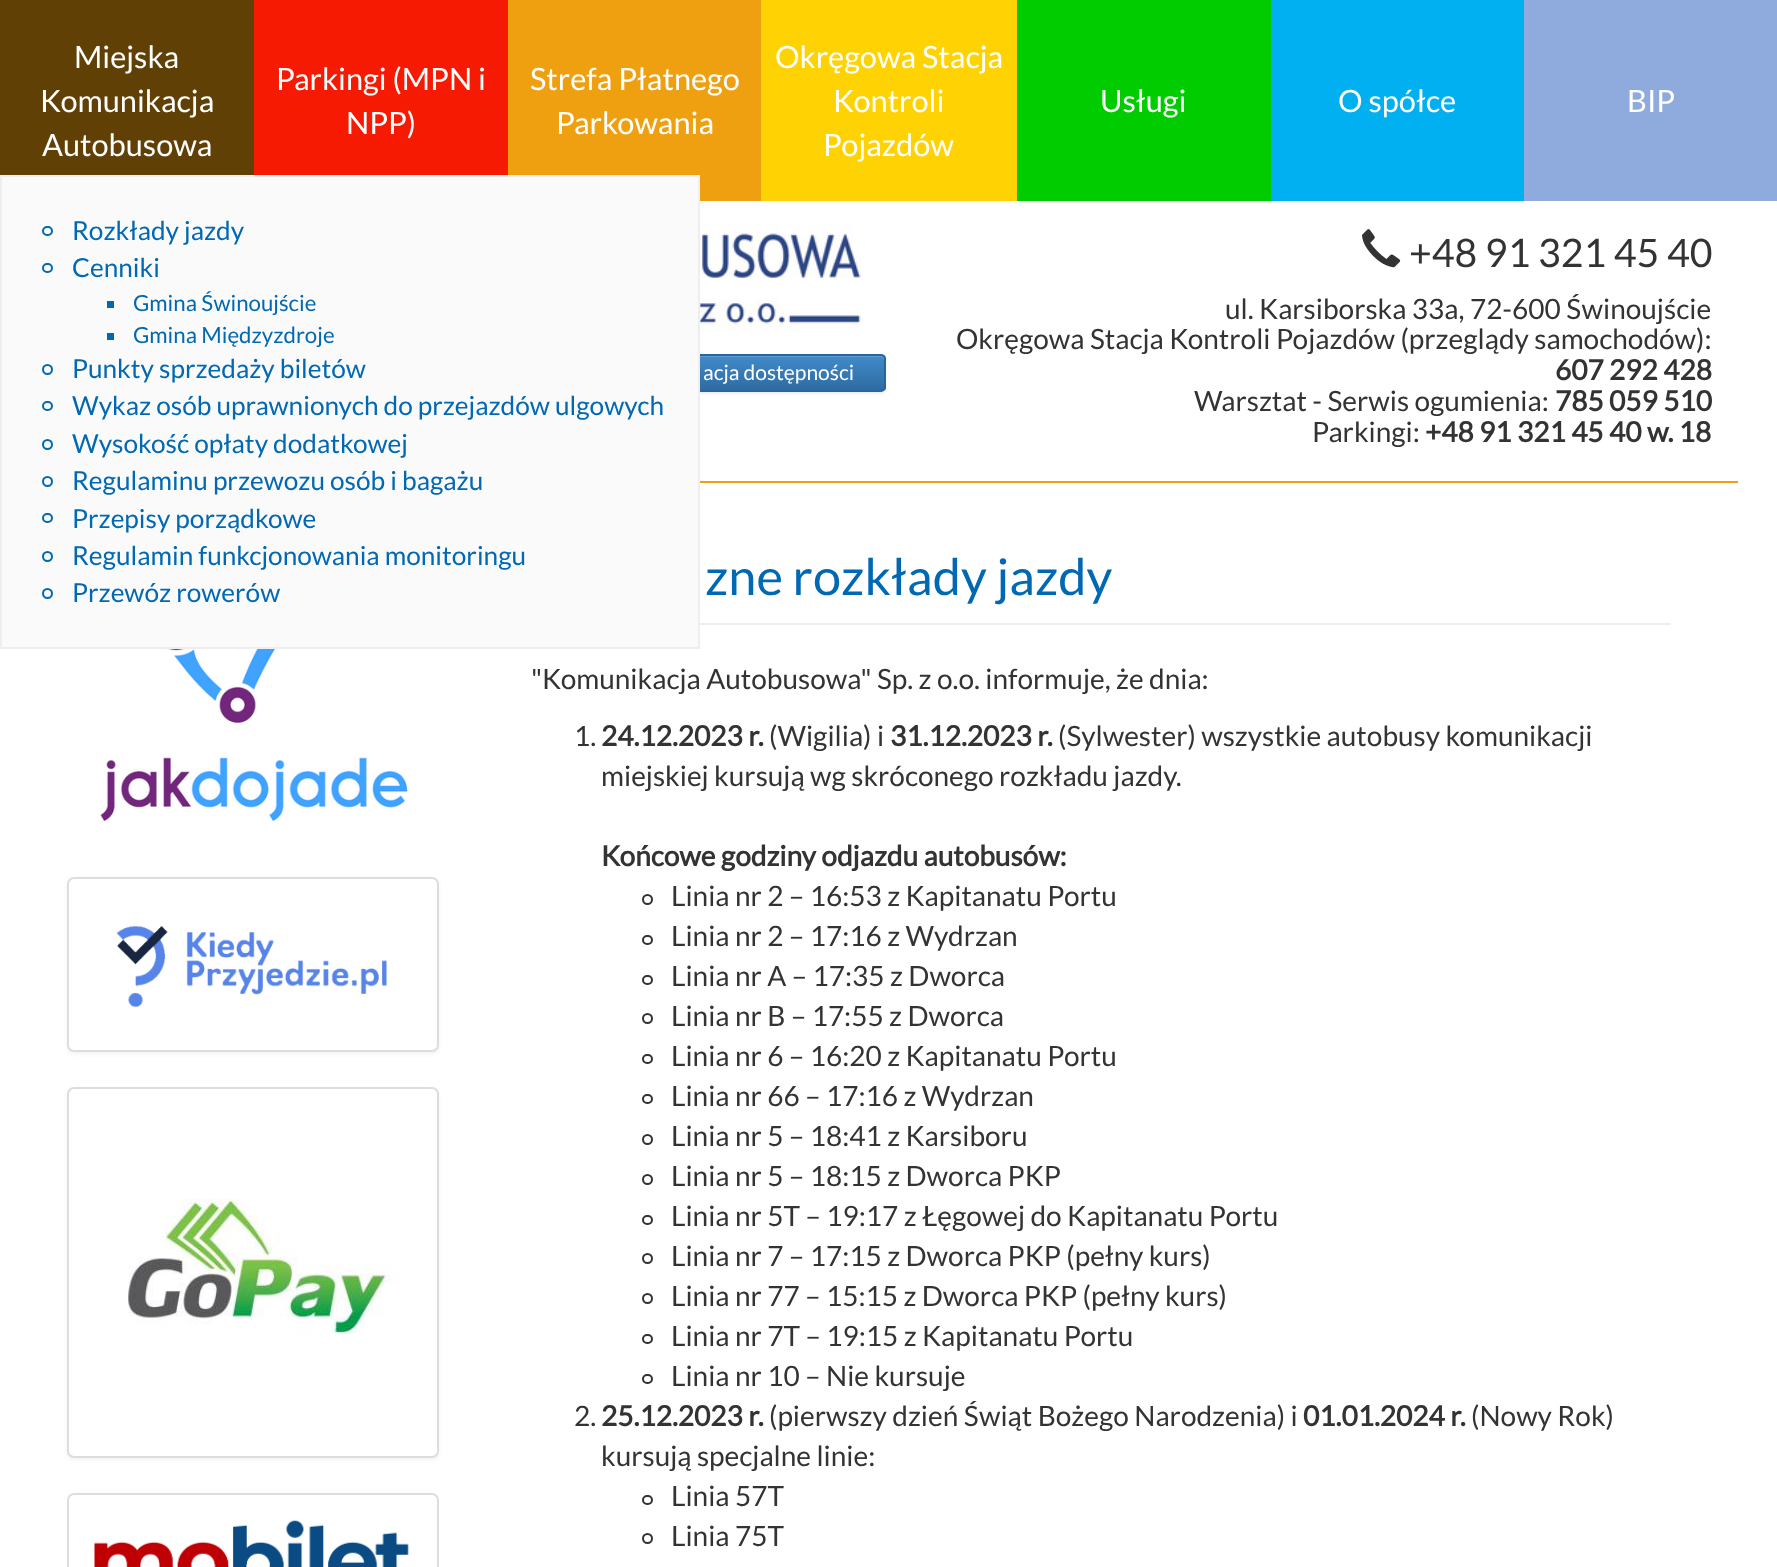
<svg xmlns="http://www.w3.org/2000/svg" width="1777" height="1567">
<defs>
<clipPath id="clip1"><rect x="609" y="354" width="277" height="38" rx="5"/></clipPath>
<linearGradient id="g1" gradientUnits="userSpaceOnUse" x1="747" y1="355" x2="747" y2="390"><stop offset="0" stop-color="#428bca"/><stop offset="1" stop-color="#2d6ca2"/></linearGradient>
</defs>
<rect width="100%" height="100%" fill="#fff"/>
<rect width="254" height="175" fill="#614006"/>
<text x="74" y="68" style="font-family:Lato;font-size:30.75px;fill:#fff">Miejska</text>
<text x="40" y="112" style="font-family:Lato;font-size:30.75px;fill:#fff">Komunikacja</text>
<text x="42" y="156" style="font-family:Lato;font-size:30.75px;fill:#fff">Autobusowa</text>
<rect x="508" width="253" height="201" fill="#efa011"/>
<rect x="609" y="355" width="277" height="39" rx="5" fill="#00000012" filter="blur(1px)"/>
<g clip-path="url(#clip1)">
<rect x="700" y="355" width="186" height="35" fill="url(#g1)"/>
</g>
<path d="M614 357h266c2 0 4 2 4 3c0-3-1-5-4-5h-265c-3 0-4 2-4 5c0-1 1-3 3-3z" fill="#ffffff26"/>
<rect x="610" y="355" width="275" height="36" rx="4" fill="none" stroke="#2b669a" stroke-width="2"/>
<rect x="1" y="176" width="698" height="472" fill="#fafafa" stroke="#eee" stroke-width="2"/>
<rect x="43" y="227" width="9" height="8" rx="4" fill="none" stroke="#0168b3" stroke-width="2"/>
<text x="72" y="240" style="font-family:Lato;font-size:26.2px;fill:#0168b3">Rozkłady jazdy</text>
<rect x="43" y="264" width="9" height="8" rx="4" fill="none" stroke="#0168b3" stroke-width="2"/>
<text x="72" y="277" style="font-family:Lato;font-size:26.2px;fill:#0168b3">Cenniki</text>
<rect x="107" y="301" width="7" height="7" fill="#0168b3"/>
<text x="133" y="311" style="font-family:Lato;font-size:22.25px;fill:#0168b3">Gmina Świnoujście</text>
<rect x="107" y="333" width="7" height="7" fill="#0168b3"/>
<text x="133" y="343" style="font-family:Lato;font-size:22.25px;fill:#0168b3">Gmina Międzyzdroje</text>
<circle cx="47.5" cy="369.5" r="4.5" fill="none" stroke="#0168b3" stroke-width="2"/>
<text x="72" y="378" style="font-family:Lato;font-size:26.2px;fill:#0168b3">Punkty sprzedaży biletów</text>
<rect x="43" y="402" width="9" height="8" rx="4" fill="none" stroke="#0168b3" stroke-width="2"/>
<text x="72" y="415" style="font-family:Lato;font-size:26.2px;fill:#0168b3">Wykaz osób uprawnionych do przejazdów ulgowych</text>
<circle cx="47.5" cy="444.5" r="4.5" fill="none" stroke="#0168b3" stroke-width="2"/>
<text x="72" y="453" style="font-family:Lato;font-size:26.2px;fill:#0168b3">Wysokość opłaty dodatkowej</text>
<circle cx="47.5" cy="481.5" r="4.5" fill="none" stroke="#0168b3" stroke-width="2"/>
<text x="72" y="490" style="font-family:Lato;font-size:26.2px;fill:#0168b3">Regulaminu przewozu osób i bagażu</text>
<rect x="43" y="514" width="9" height="8" rx="4" fill="none" stroke="#0168b3" stroke-width="2"/>
<text x="72" y="528" style="font-family:Lato;font-size:26.2px;fill:#0168b3">Przepisy porządkowe</text>
<circle cx="47.5" cy="556.5" r="4.5" fill="none" stroke="#0168b3" stroke-width="2"/>
<text x="72" y="565" style="font-family:Lato;font-size:26.2px;fill:#0168b3">Regulamin funkcjonowania monitoringu</text>
<circle cx="47.5" cy="593.5" r="4.5" fill="none" stroke="#0168b3" stroke-width="2"/>
<text x="72" y="602" style="font-family:Lato;font-size:26.2px;fill:#0168b3">Przewóz rowerów</text>
<rect x="761" width="256" height="201" fill="#ffd203"/>
<text x="775" y="68" style="font-family:Lato;font-size:30.75px;fill:#fff">Okręgowa Stacja</text>
<text x="833" y="112" style="font-family:Lato;font-size:30.75px;fill:#fff">Kontroli</text>
<text x="823" y="156" style="font-family:Lato;font-size:30.75px;fill:#fff">Pojazdów</text>
<rect x="254" width="254" height="175" fill="#f71a03"/>
<text x="276" y="90" style="font-family:Lato;font-size:30.75px;fill:#fff">Parkingi (MPN i</text>
<text x="346" y="134" style="font-family:Lato;font-size:30.75px;fill:#fff">NPP)</text>
<text x="530" y="90" style="font-family:Lato;font-size:30.75px;fill:#fff">Strefa Płatnego</text>
<text x="556" y="134" style="font-family:Lato;font-size:30.75px;fill:#fff">Parkowania</text>
<rect x="1017" width="254" height="201" fill="#0c0"/>
<text x="1100" y="112" style="font-family:Lato;font-size:30.75px;fill:#fff">Usługi</text>
<rect x="1271" width="253" height="201" fill="#00b0f0"/>
<text x="1338" y="112" style="font-family:Lato;font-size:30.75px;fill:#fff">O spółce</text>
<rect x="1524" width="253" height="201" fill="#8faadc"/>
<text x="1627" y="112" style="font-family:Lato;font-size:30.75px;fill:#fff">BIP</text>
<image x="700" y="214" width="161" height="117" href="media/1.png"/>
<text x="703" y="380" style="font-family:Lato;font-size:21px;fill:#fff">acja dostępności</text>
<image x="1362" y="229" width="39" height="39" href="media/2.png"/>
<text x="1409" y="267" style="font-family:Lato;font-size:39.25px;fill:#333">+48 91 321 45 40</text>
<text x="1225" y="319" style="font-family:Lato;font-size:28px;fill:#333">ul. Karsiborska 33a, 72-600 Świnoujście</text>
<text x="956" y="349" style="font-family:Lato;font-size:28px;fill:#333">Okręgowa Stacja Kontroli Pojazdów (przeglądy samochodów):</text>
<text x="1555" y="380" style="font-family:Lato;font-size:28px;font-weight:bold;fill:#333">607 292 428</text>
<text x="1194" y="411" style="font-family:Lato;font-size:28px;fill:#333">Warsztat - Serwis ogumienia:</text>
<text x="1555" y="411" style="font-family:Lato;font-size:28px;font-weight:bold;fill:#333">785 059 510</text>
<text x="1312" y="442" style="font-family:Lato;font-size:28px;fill:#333">Parkingi:</text>
<text x="1425" y="442" style="font-family:Lato;font-size:28px;font-weight:bold;fill:#333">+48 91 321 45 40 w. 18</text>
<rect x="700" y="481" width="1038" height="2" fill="#efa011"/>
<image x="100" y="649" width="308" height="173" href="media/3.png"/>
<rect x="67" y="879" width="372" height="175" rx="7" fill="#0000000d" filter="blur(2px)"/>
<rect x="68" y="878" width="370" height="173" rx="6" fill="#fff" stroke="#ddd" stroke-width="2"/>
<image x="116" y="926" width="271" height="82" href="media/4.png"/>
<rect x="67" y="1089" width="372" height="371" rx="7" fill="#0000000d" filter="blur(2px)"/>
<rect x="68" y="1088" width="370" height="369" rx="6" fill="#fff" stroke="#ddd" stroke-width="2"/>
<image x="128" y="1198" width="270" height="136" href="media/5.png"/>
<rect x="68" y="1494" width="370" height="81" rx="6" fill="none" stroke="#ddd" stroke-width="2"/>
<image x="94" y="1520" width="315" height="47" href="media/6.png"/>
<rect x="700" y="623" width="971" height="2" fill="#eee"/>
<text x="705" y="595" style="font-family:Lato;font-size:50.5px;fill:#0168b3">zne rozkłady jazdy</text>
<text x="531" y="689" style="font-family:Lato;font-size:28px;fill:#333">"Komunikacja Autobusowa" Sp. z o.o. informuje, że dnia:</text>
<text x="574" y="746" style="font-family:Lato;font-size:28px;fill:#333">1.</text>
<text x="601" y="746" style="font-family:Lato;font-size:28px;font-weight:bold;fill:#333">24.12.2023 r.</text>
<text x="769" y="746" style="font-family:Lato;font-size:28px;fill:#333">(Wigilia) i</text>
<text x="890" y="746" style="font-family:Lato;font-size:28px;font-weight:bold;fill:#333">31.12.2023 r.</text>
<text x="1058" y="746" style="font-family:Lato;font-size:28px;fill:#333">(Sylwester) wszystkie autobusy komunikacji</text>
<text x="601" y="786" style="font-family:Lato;font-size:28px;fill:#333">miejskiej kursują wg skróconego rozkładu jazdy.</text>
<text x="601" y="866" style="font-family:Lato;font-size:28px;font-weight:bold;fill:#333">Końcowe godziny odjazdu autobusów:</text>
<circle cx="647.5" cy="899.5" r="4.5" fill="none" stroke="#333" stroke-width="2"/>
<text x="671" y="906" style="font-family:Lato;font-size:28px;fill:#333">Linia nr 2 – 16:53 z Kapitanatu Portu</text>
<rect x="643" y="936" width="9" height="8" rx="4" fill="none" stroke="#333" stroke-width="2"/>
<text x="671" y="946" style="font-family:Lato;font-size:28px;fill:#333">Linia nr 2 – 17:16 z Wydrzan</text>
<rect x="643" y="976" width="9" height="8" rx="4" fill="none" stroke="#333" stroke-width="2"/>
<text x="671" y="986" style="font-family:Lato;font-size:28px;fill:#333">Linia nr A – 17:35 z Dworca</text>
<circle cx="647.5" cy="1018.5" r="4.5" fill="none" stroke="#333" stroke-width="2"/>
<text x="671" y="1026" style="font-family:Lato;font-size:28px;fill:#333">Linia nr B – 17:55 z Dworca</text>
<rect x="643" y="1055" width="9" height="8" rx="4" fill="none" stroke="#333" stroke-width="2"/>
<text x="671" y="1066" style="font-family:Lato;font-size:28px;fill:#333">Linia nr 6 – 16:20 z Kapitanatu Portu</text>
<rect x="643" y="1095" width="9" height="8" rx="4" fill="none" stroke="#333" stroke-width="2"/>
<text x="671" y="1106" style="font-family:Lato;font-size:28px;fill:#333">Linia nr 66 – 17:16 z Wydrzan</text>
<circle cx="647.5" cy="1139.5" r="4.5" fill="none" stroke="#333" stroke-width="2"/>
<text x="671" y="1146" style="font-family:Lato;font-size:28px;fill:#333">Linia nr 5 – 18:41 z Karsiboru</text>
<circle cx="647.5" cy="1179.5" r="4.5" fill="none" stroke="#333" stroke-width="2"/>
<text x="671" y="1186" style="font-family:Lato;font-size:28px;fill:#333">Linia nr 5 – 18:15 z Dworca PKP</text>
<rect x="643" y="1216" width="9" height="8" rx="4" fill="none" stroke="#333" stroke-width="2"/>
<text x="671" y="1226" style="font-family:Lato;font-size:28px;fill:#333">Linia nr 5T – 19:17 z Łęgowej do Kapitanatu Portu</text>
<circle cx="647.5" cy="1258.5" r="4.5" fill="none" stroke="#333" stroke-width="2"/>
<text x="671" y="1266" style="font-family:Lato;font-size:28px;fill:#333">Linia nr 7 – 17:15 z Dworca PKP (pełny kurs)</text>
<circle cx="647.5" cy="1298.5" r="4.5" fill="none" stroke="#333" stroke-width="2"/>
<text x="671" y="1306" style="font-family:Lato;font-size:28px;fill:#333">Linia nr 77 – 15:15 z Dworca PKP (pełny kurs)</text>
<rect x="643" y="1335" width="9" height="8" rx="4" fill="none" stroke="#333" stroke-width="2"/>
<text x="671" y="1346" style="font-family:Lato;font-size:28px;fill:#333">Linia nr 7T – 19:15 z Kapitanatu Portu</text>
<rect x="643" y="1375" width="9" height="8" rx="4" fill="none" stroke="#333" stroke-width="2"/>
<text x="671" y="1386" style="font-family:Lato;font-size:28px;fill:#333">Linia nr 10 – Nie kursuje</text>
<text x="574" y="1426" style="font-family:Lato;font-size:28px;fill:#333">2.</text>
<text x="601" y="1426" style="font-family:Lato;font-size:28px;font-weight:bold;fill:#333">25.12.2023 r.</text>
<text x="769" y="1426" style="font-family:Lato;font-size:28px;fill:#333">(pierwszy dzień Świąt Bożego Narodzenia) i</text>
<text x="1303" y="1426" style="font-family:Lato;font-size:28px;font-weight:bold;fill:#333">01.01.2024 r.</text>
<text x="1471" y="1426" style="font-family:Lato;font-size:28px;fill:#333">(Nowy Rok)</text>
<text x="601" y="1466" style="font-family:Lato;font-size:28px;fill:#333">kursują specjalne linie:</text>
<rect x="643" y="1496" width="9" height="8" rx="4" fill="none" stroke="#333" stroke-width="2"/>
<text x="671" y="1506" style="font-family:Lato;font-size:28px;fill:#333">Linia 57T</text>
<circle cx="647.5" cy="1538.5" r="4.5" fill="none" stroke="#333" stroke-width="2"/>
<text x="671" y="1546" style="font-family:Lato;font-size:28px;fill:#333">Linia 75T</text>
</svg>
